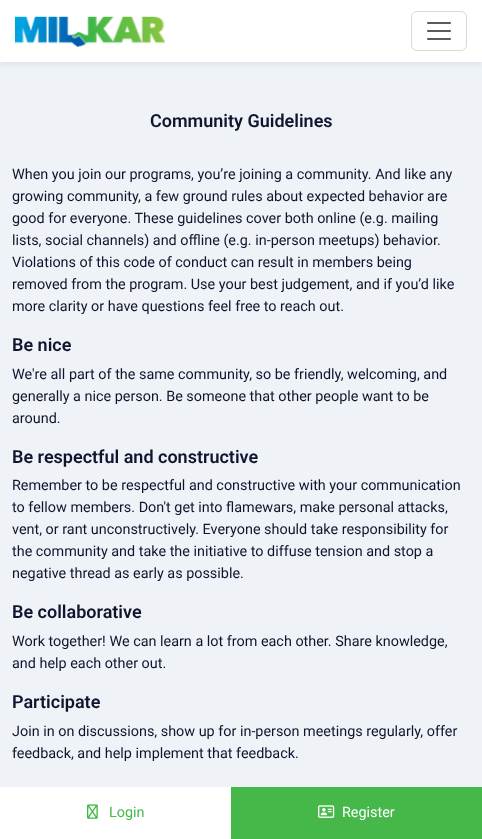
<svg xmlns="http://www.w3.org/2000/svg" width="482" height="839">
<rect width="100%" height="100%" fill="#eff3f8"/>
<text x="150" y="127" style="font-family:Roboto;font-size:18px;font-weight:600;fill:#11142d">Community Guidelines</text>
<text x="12" y="179" style="font-family:Roboto;font-size:14.4px;fill:#11142d">When you join our programs, you’re joining a community. And like any</text>
<text x="12" y="201" style="font-family:Roboto;font-size:14.4px;fill:#11142d">growing community, a few ground rules about expected behavior are</text>
<text x="12" y="223" style="font-family:Roboto;font-size:14.4px;fill:#11142d">good for everyone. These guidelines cover both online (e.g. mailing</text>
<text x="12" y="245" style="font-family:Roboto;font-size:14.4px;fill:#11142d">lists, social channels) and offline (e.g. in-person meetups) behavior.</text>
<text x="12" y="267" style="font-family:Roboto;font-size:14.4px;fill:#11142d">Violations of this code of conduct can result in members being</text>
<text x="12" y="289" style="font-family:Roboto;font-size:14.4px;fill:#11142d">removed from the program. Use your best judgement, and if you’d like</text>
<text x="12" y="311" style="font-family:Roboto;font-size:14.4px;fill:#11142d">more clarity or have questions feel free to reach out.</text>
<text x="12" y="351" style="font-family:Roboto;font-size:18px;font-weight:600;fill:#11142d">Be nice</text>
<text x="12" y="379" style="font-family:Roboto;font-size:14.4px;fill:#11142d">We're all part of the same community, so be friendly, welcoming, and</text>
<text x="12" y="401" style="font-family:Roboto;font-size:14.4px;fill:#11142d">generally a nice person. Be someone that other people want to be</text>
<text x="12" y="423" style="font-family:Roboto;font-size:14.4px;fill:#11142d">around.</text>
<text x="12" y="463" style="font-family:Roboto;font-size:18px;font-weight:600;fill:#11142d">Be respectful and constructive</text>
<text x="12" y="490" style="font-family:Roboto;font-size:14.4px;fill:#11142d">Remember to be respectful and constructive with your communication</text>
<text x="12" y="512" style="font-family:Roboto;font-size:14.4px;fill:#11142d">to fellow members. Don't get into flamewars, make personal attacks,</text>
<text x="12" y="534" style="font-family:Roboto;font-size:14.4px;fill:#11142d">vent, or rant unconstructively. Everyone should take responsibility for</text>
<text x="12" y="556" style="font-family:Roboto;font-size:14.4px;fill:#11142d">the community and take the initiative to diffuse tension and stop a</text>
<text x="12" y="578" style="font-family:Roboto;font-size:14.4px;fill:#11142d">negative thread as early as possible.</text>
<text x="12" y="618" style="font-family:Roboto;font-size:18px;font-weight:600;fill:#11142d">Be collaborative</text>
<text x="12" y="646" style="font-family:Roboto;font-size:14.4px;fill:#11142d">Work together! We can learn a lot from each other. Share knowledge,</text>
<text x="12" y="668" style="font-family:Roboto;font-size:14.4px;fill:#11142d">and help each other out.</text>
<text x="12" y="708" style="font-family:Roboto;font-size:18px;font-weight:600;fill:#11142d">Participate</text>
<text x="12" y="736" style="font-family:Roboto;font-size:14.4px;fill:#11142d">Join in on discussions, show up for in-person meetings regularly, offer</text>
<text x="12" y="758" style="font-family:Roboto;font-size:14.4px;fill:#11142d">feedback, and help implement that feedback.</text>
<rect y="2" width="482" height="62" fill="#4359711f" filter="blur(3px)"/>
<rect width="482" height="62" fill="#fff"/>
<image x="15" y="16" width="150" height="31" href="media/1.png"/>
<rect x="411.5" y="11.5" width="55" height="39" rx="5.5" fill="none" stroke="#d9d9d9"/>
<image x="427" y="22" width="24" height="18" href="media/2.png"/>
<rect y="787" width="231" height="52" fill="#fff"/>
<image x="87" y="804" width="11" height="15" href="media/3.png"/>
<text x="109" y="817" style="font-family:Roboto;font-size:14.4px;fill:#46b849">Login</text>
<rect x="231" y="787" width="251" height="52" fill="#46b849"/>
<image x="318" y="805" width="17" height="13" href="media/4.png"/>
<text x="342" y="817" style="font-family:Roboto;font-size:14.4px;fill:#fff">Register</text>
</svg>
